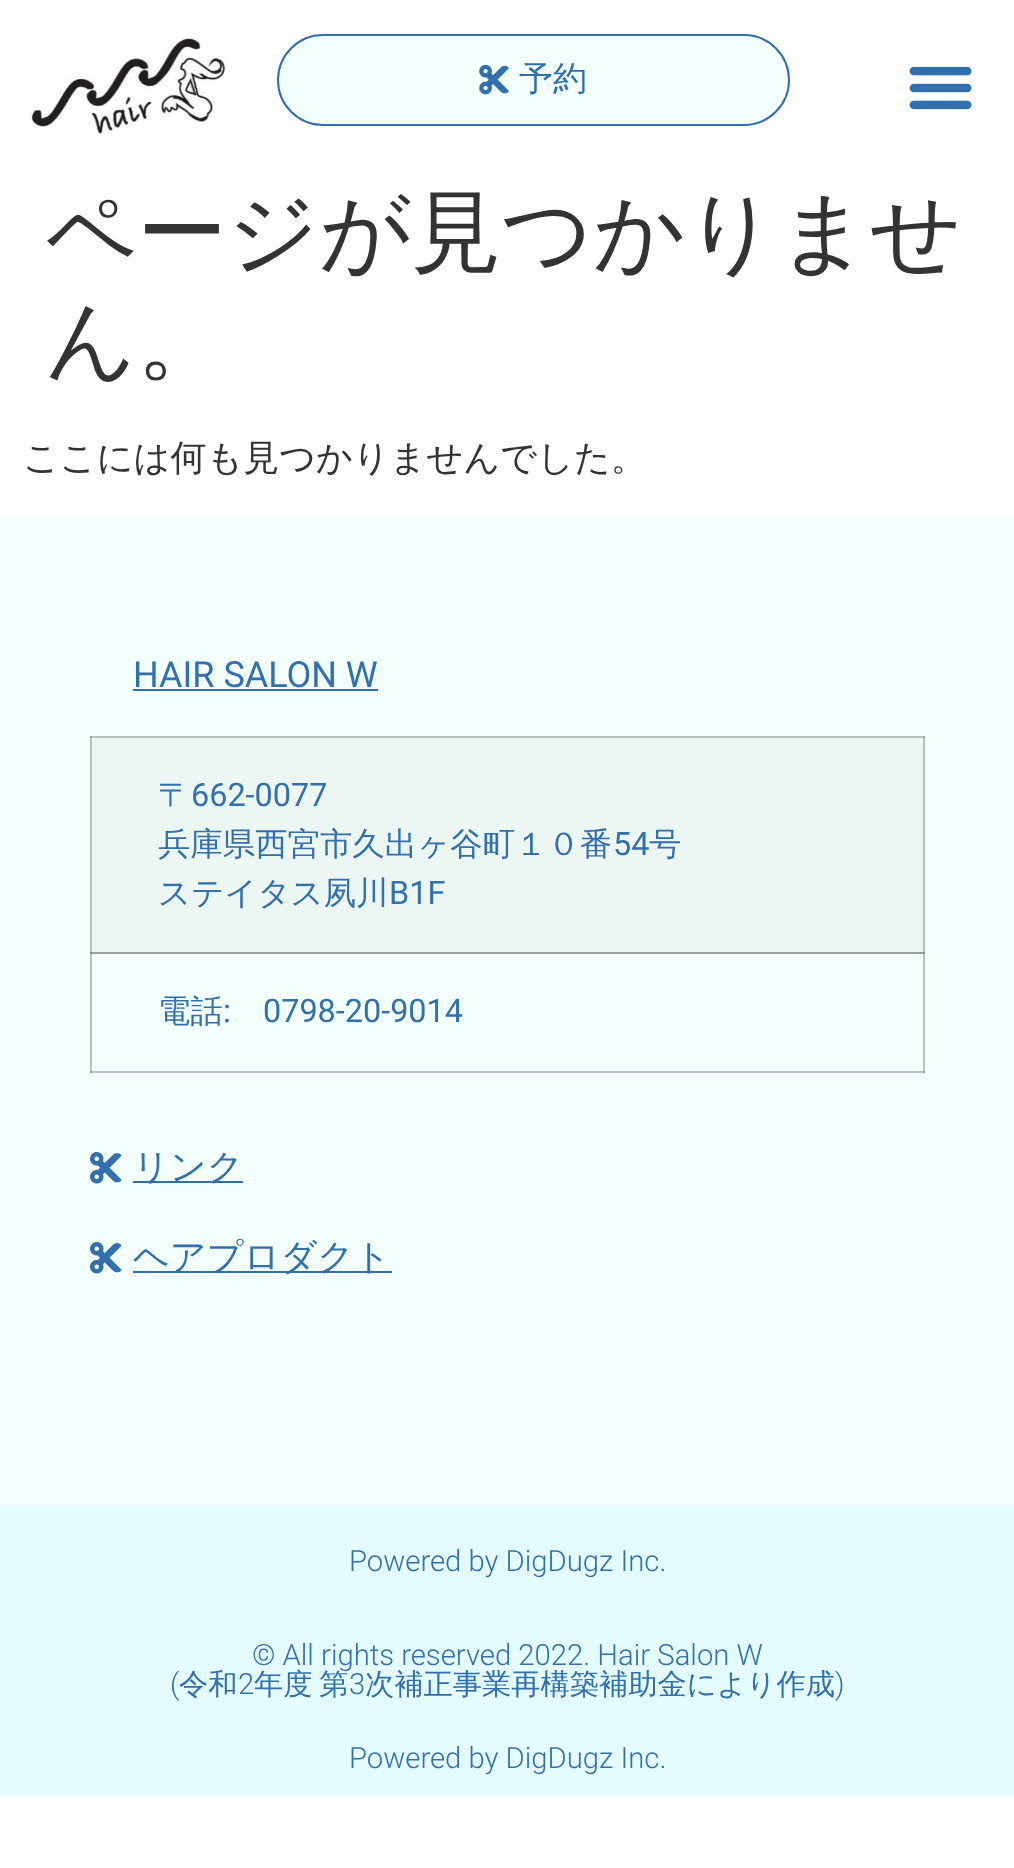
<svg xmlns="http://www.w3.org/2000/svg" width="1014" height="1868">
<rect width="100%" height="100%" fill="#fff"/>
<image x="29" y="36" width="199" height="99" href="media/1.png"/>
<rect x="278" y="35" width="511" height="90" rx="45" fill="#f3fffd" stroke="#326fad" stroke-width="2"/>
<image x="479" y="64" width="30" height="31" href="media/2.png"/>
<text x="519" y="90" style="font-family:WenQuanYi Zen Hei;font-size:34px;font-weight:500;fill:#326fad">予約</text>
<image x="909" y="66" width="63" height="44" href="media/3.png"/>
<text x="45" y="263" style="font-family:WenQuanYi Zen Hei;font-size:90px;font-weight:500;fill:#333">ページが見つかりませ</text>
<text x="45" y="371" style="font-family:WenQuanYi Zen Hei;font-size:90px;font-weight:500;fill:#333">ん。</text>
<text x="23" y="470" style="font-family:WenQuanYi Zen Hei;font-size:36px;font-weight:500;fill:#333">ここには何も見つかりませんでした。</text>
<rect y="518" width="1014" height="987" fill="#f3fffd"/>
<rect x="90" y="736" width="2" height="337" fill="#bac0bf"/>
<rect x="90" y="1071" width="835" height="2" fill="#bac0bf"/>
<rect x="90" y="1071" width="2" height="2" fill="#9da0a0"/>
<rect x="923" y="952" width="2" height="121" fill="#bac0bf"/>
<rect x="923" y="1071" width="2" height="2" fill="#9da0a0"/>
<rect x="90" y="952" width="2" height="2" fill="#888"/>
<text x="133" y="687" style="font-family:Roboto;font-size:36px;fill:#326fad">HAIR SALON W</text>
<rect x="133" y="689" width="245" height="2" fill="#326fad"/>
<rect x="92" y="738" width="831" height="214" fill="#ecf7f4"/>
<rect x="923" y="738" width="2" height="216" fill="#b6bcba"/>
<rect x="92" y="952" width="833" height="2" fill="#9b9e9d"/>
<rect x="923" y="952" width="2" height="2" fill="#878888"/>
<rect x="90" y="736" width="835" height="2" fill="#bac0bf"/>
<rect x="90" y="736" width="2" height="2" fill="#9da0a0"/>
<rect x="923" y="736" width="2" height="2" fill="#9da0a0"/>
<text x="158" y="806" style="font-family:WenQuanYi Zen Hei;font-size:32.4px;font-weight:500;fill:#326fad">〒</text>
<text x="191" y="806" style="font-family:Roboto;font-size:32.4px;fill:#326fad">662-0077</text>
<text x="158" y="855" style="font-family:WenQuanYi Zen Hei;font-size:32.4px;font-weight:500;fill:#326fad">兵庫県西宮市久出ヶ谷町１０番</text>
<text x="613" y="855" style="font-family:Roboto;font-size:32.4px;fill:#326fad">54</text>
<text x="649" y="855" style="font-family:WenQuanYi Zen Hei;font-size:32.4px;font-weight:500;fill:#326fad">号</text>
<text x="158" y="904" style="font-family:WenQuanYi Zen Hei;font-size:32.4px;font-weight:500;fill:#326fad">ステイタス夙川</text>
<text x="389" y="904" style="font-family:Roboto;font-size:32.4px;fill:#326fad">B1F</text>
<text x="158" y="1022" style="font-family:WenQuanYi Zen Hei;font-size:32.4px;font-weight:500;fill:#326fad">電話</text>
<text x="223" y="1022" style="font-family:Roboto;font-size:32.4px;fill:#326fad">:</text>
<text x="263" y="1022" style="font-family:Roboto;font-size:32.4px;fill:#326fad">0798-20-9014</text>
<image x="90" y="1152" width="32" height="32" href="media/4.png"/>
<rect x="133" y="1181" width="110" height="2" fill="#326fad"/>
<text x="133" y="1179" style="font-family:WenQuanYi Zen Hei;font-size:36px;font-weight:500;fill:#326fad">リンク</text>
<image x="90" y="1242" width="32" height="32" href="media/4.png"/>
<rect x="133" y="1271" width="259" height="2" fill="#326fad"/>
<text x="133" y="1269" style="font-family:WenQuanYi Zen Hei;font-size:36px;font-weight:500;fill:#326fad">ヘアプロダクト</text>
<rect y="1505" width="1014" height="291" fill="#e4fcff"/>
<text x="349" y="1571" style="font-family:Roboto;font-size:29.25px;font-weight:300;fill:#326fad">Powered by DigDugz Inc.</text>
<text x="252" y="1665" style="font-family:Roboto;font-size:29.25px;font-weight:300;fill:#326fad">© All rights reserved 2022. Hair Salon W</text>
<text x="170" y="1694" style="font-family:Roboto;font-size:29.25px;font-weight:300;fill:#326fad">(</text>
<text x="179" y="1694" style="font-family:WenQuanYi Zen Hei;font-size:29.25px;font-weight:500;fill:#326fad">令和</text>
<text x="238" y="1694" style="font-family:Roboto;font-size:29.25px;font-weight:300;fill:#326fad">2</text>
<text x="254" y="1694" word-spacing="-2" style="font-family:WenQuanYi Zen Hei;font-size:29.25px;font-weight:500;fill:#326fad">年度 第</text>
<text x="349" y="1694" style="font-family:Roboto;font-size:29.25px;font-weight:300;fill:#326fad">3</text>
<text x="365" y="1694" style="font-family:WenQuanYi Zen Hei;font-size:29.25px;font-weight:500;fill:#326fad">次補正事業再構築補助金により作成</text>
<text x="835" y="1694" style="font-family:Roboto;font-size:29.25px;font-weight:300;fill:#326fad">)</text>
<text x="349" y="1768" style="font-family:Roboto;font-size:29.25px;font-weight:300;fill:#326fad">Powered by DigDugz Inc.</text>
</svg>
